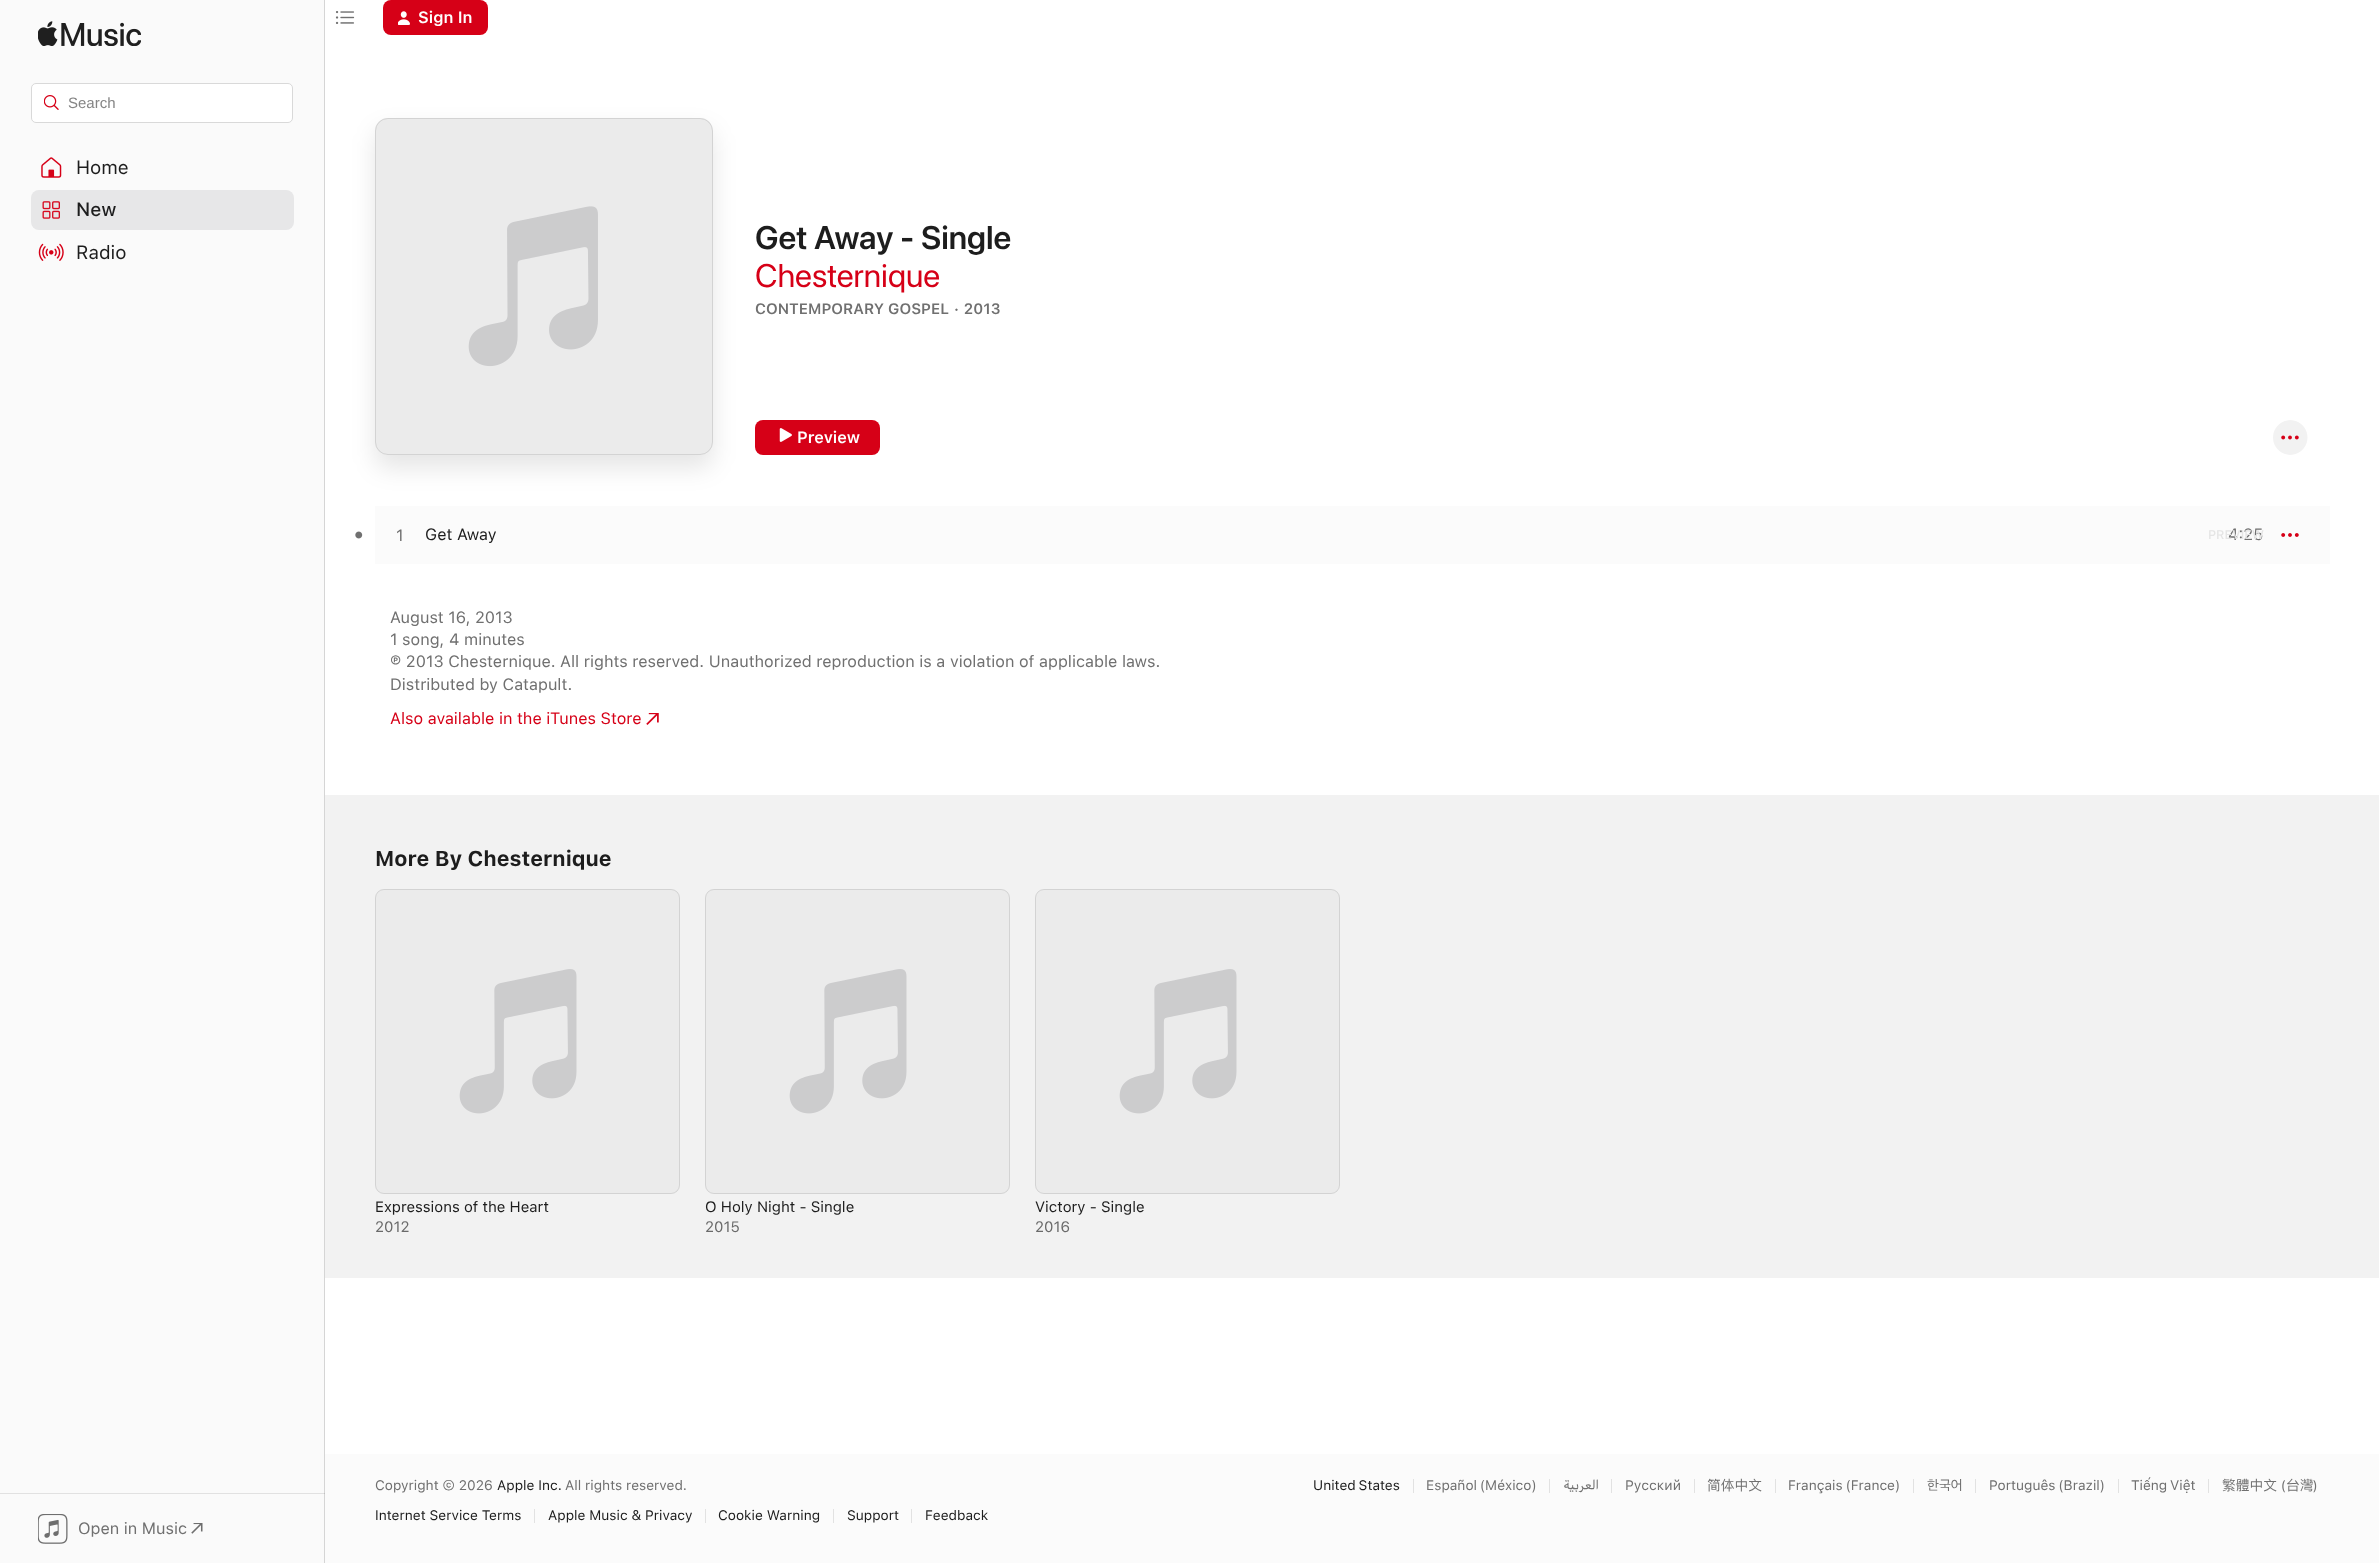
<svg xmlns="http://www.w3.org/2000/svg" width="2379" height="1563">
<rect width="100%" height="100%" fill="#fff"/>
<image x="335" y="11" width="20" height="13" href="media/1.png"/>
<rect x="383" width="105" height="35" rx="8" fill="#d60017"/>
<image x="398" y="11" width="12" height="14" href="media/2.png"/>
<text x="418" y="23" style="font-family:SF;font-size:16.25px;font-weight:600;fill:#fff">Sign In</text>
<rect width="324" height="1563" fill="#fafafa"/>
<rect y="1493" width="325" height="1" fill="#e1e1e1"/>
<rect x="324" width="1" height="1563" fill="#d5d5d5"/>
<rect x="324" y="1493" width="1" height="1" fill="#c0c0c0"/>
<image x="38" y="21" width="103" height="25" href="media/3.png"/>
<rect x="31.5" y="83.5" width="261" height="39" rx="4.5" fill="#fff" stroke="#d9d9d9"/>
<image x="44" y="95" width="15" height="15" href="media/4.png"/>
<text x="68" y="108" style="font-family:Liberation Sans;font-size:15px;fill:#858585">Search</text>
<image x="41" y="157" width="21" height="21" href="media/5.png"/>
<text x="76" y="174" style="font-family:'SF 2';font-size:19px;fill:#1d1d1d">Home</text>
<rect x="31" y="190" width="263" height="40" rx="8" fill="#e7e7e8"/>
<image x="42" y="201" width="18" height="18" href="media/6.png"/>
<text x="76" y="216" style="font-family:SF;font-size:19px;font-weight:500;fill:#1d1d1d">New</text>
<image x="38" y="243" width="26" height="18" href="media/7.png"/>
<text x="76" y="259" style="font-family:'SF 2';font-size:19px;fill:#1d1d1d">Radio</text>
<image x="38" y="1514" width="30" height="30" href="media/8.png"/>
<text x="78" y="1534" style="font-family:'SF 2';font-size:16.25px;fill:#707070">Open in Music</text>
<image x="191" y="1523" width="12" height="11" href="media/9.png"/>
<rect x="375" y="506" width="1955" height="58" fill="#fbfbfb"/>
<rect x="375" y="130" width="338" height="338" rx="13" fill="#0000001a" filter="blur(12.5px)"/>
<rect x="375" y="118" width="338" height="337" rx="13" fill="#ebebeb"/>
<image x="375" y="118" width="336" height="335" href="media/10.png"/>
<rect x="375.5" y="118.5" width="337" height="336" rx="12.5" fill="none" stroke="#0000001a"/>
<text x="755" y="249" style="font-family:'SF 2';font-size:32.5px;font-weight:600;fill:#1d1d1d">Get Away - Single</text>
<text x="755" y="287" style="font-family:SF;font-size:32.5px;fill:#d60017">Chesternique</text>
<text x="755" y="314" style="font-family:SF;font-size:15px;font-weight:600;fill:#707070">CONTEMPORARY GOSPEL · 2013</text>
<rect x="755" y="420" width="125" height="35" rx="8" fill="#d60017"/>
<image x="779" y="428" width="13" height="14" href="media/11.png"/>
<text x="797" y="443" style="font-family:SF;font-size:16.25px;font-weight:600;fill:#fff">Preview</text>
<image x="2273" y="420" width="35" height="35" href="media/12.png"/>
<image x="355" y="531" width="8" height="8" href="media/13.png"/>
<text x="396" y="541" style="font-family:'SF 2';font-size:16.25px;fill:#707070">1</text>
<text x="425" y="540" style="font-family:'SF 2';font-size:16.25px;fill:#1d1d1d">Get Away</text>
<text x="2228" y="540" style="font-family:'SF 2';font-size:16.25px;fill:#707070">4:25</text>
<text x="2208" y="539" style="font-family:SF;font-size:12.5px;font-weight:500;fill:#e5e5e5">PREVIEW</text>
<image x="2281" y="533" width="18" height="4" href="media/14.png"/>
<text x="390" y="623" style="font-family:'SF 2';font-size:16.25px;fill:#707070">August 16, 2013</text>
<text x="390" y="645" style="font-family:'SF 2';font-size:16.25px;fill:#707070">1 song, 4 minutes</text>
<text x="390" y="667" style="font-family:'SF 2';font-size:16.25px;fill:#707070">℗ 2013 Chesternique. All rights reserved. Unauthorized reproduction is a violation of applicable laws.</text>
<text x="390" y="690" style="font-family:'SF 2';font-size:16.25px;fill:#707070">Distributed by Catapult.</text>
<text x="390" y="724" style="font-family:'SF 2';font-size:16.25px;fill:#d60017">Also available in the iTunes Store</text>
<image x="646" y="713" width="13" height="12" href="media/15.png"/>
<rect x="325" y="795" width="2054" height="483" fill="#f2f2f2"/>
<text x="375" y="866" style="font-family:SF;font-size:21.25px;font-weight:bold;fill:#1d1d1d">More By Chesternique</text>
<image x="375" y="889" width="305" height="305" href="media/16.png"/>
<rect x="375.5" y="889.5" width="304" height="304" rx="8.5" fill="none" stroke="#0000001a"/>
<text x="375" y="1212" style="font-family:'SF 2';font-size:15px;fill:#1d1d1d">Expressions of the Heart</text>
<text x="375" y="1232" style="font-family:'SF 2';font-size:15px;fill:#6a6a6a">2012</text>
<image x="705" y="889" width="305" height="305" href="media/17.png"/>
<rect x="705.5" y="889.5" width="304" height="304" rx="8.5" fill="none" stroke="#0000001a"/>
<text x="705" y="1212" style="font-family:'SF 2';font-size:15px;fill:#1d1d1d">O Holy Night - Single</text>
<text x="705" y="1232" style="font-family:'SF 2';font-size:15px;fill:#6a6a6a">2015</text>
<rect x="1035" y="889" width="305" height="305" rx="9" fill="#ebebeb"/>
<image x="1119" y="969" width="118" height="145" href="media/18.png"/>
<rect x="1035.5" y="889.5" width="304" height="304" rx="8.5" fill="none" stroke="#0000001a"/>
<text x="1035" y="1212" style="font-family:'SF 2';font-size:15px;fill:#1d1d1d">Victory - Single</text>
<text x="1035" y="1232" style="font-family:'SF 2';font-size:15px;fill:#6a6a6a">2016</text>
<rect x="325" y="1454" width="2054" height="109" fill="#fbfbfb"/>
<text x="375" y="1490" style="font-family:'SF 2';font-size:13.75px;fill:#707070">Copyright © 2026</text>
<text x="497" y="1490" style="font-family:'SF 2';font-size:13.75px;fill:#1d1d1d">Apple Inc.</text>
<text x="565" y="1490" style="font-family:'SF 2';font-size:13.75px;fill:#707070">All rights reserved.</text>
<text x="375" y="1520" style="font-family:'SF 2';font-size:13.75px;fill:#1d1d1d">Internet Service Terms</text>
<rect x="534" y="1509" width="1" height="14" fill="#e2e2e2"/>
<text x="548" y="1520" style="font-family:'SF 2';font-size:13.75px;fill:#1d1d1d">Apple Music &amp; Privacy</text>
<rect x="705" y="1509" width="1" height="14" fill="#e2e2e2"/>
<text x="718" y="1520" style="font-family:'SF 2';font-size:13.75px;fill:#1d1d1d">Cookie Warning</text>
<rect x="833" y="1509" width="1" height="14" fill="#e2e2e2"/>
<text x="847" y="1520" style="font-family:'SF 2';font-size:13.75px;fill:#1d1d1d">Support</text>
<rect x="911" y="1509" width="1" height="14" fill="#e2e2e2"/>
<text x="925" y="1520" style="font-family:'SF 2';font-size:13.75px;fill:#1d1d1d">Feedback</text>
<text x="1313" y="1490" word-spacing="-1" style="font-family:'SF 2';font-size:13.75px;fill:#1d1d1d">United States</text>
<rect x="1413" y="1479" width="1" height="14" fill="#e2e2e2"/>
<text x="1426" y="1490" word-spacing="-1" style="font-family:'SF 2';font-size:13.75px;fill:#707070">Español (México)</text>
<rect x="1549" y="1479" width="1" height="14" fill="#e2e2e2"/>
<text x="1599" y="1490" style="font-family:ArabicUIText;font-size:13.75px;direction:rtl;fill:#707070">العربية</text>
<rect x="1611" y="1479" width="1" height="14" fill="#e2e2e2"/>
<text x="1625" y="1490" style="font-family:'SF 2';font-size:13.75px;fill:#707070">Русский</text>
<rect x="1694" y="1479" width="1" height="14" fill="#e2e2e2"/>
<text x="1707" y="1490" style="font-family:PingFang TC;font-size:13.75px;fill:#707070">简体中文</text>
<rect x="1775" y="1479" width="1" height="14" fill="#e2e2e2"/>
<text x="1788" y="1490" word-spacing="-1" style="font-family:'SF 2';font-size:13.75px;fill:#707070">Français (France)</text>
<rect x="1913" y="1479" width="1" height="14" fill="#e2e2e2"/>
<text x="1927" y="1490" style="font-family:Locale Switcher;font-size:13.75px;fill:#707070">한국어</text>
<rect x="1975" y="1479" width="1" height="14" fill="#e2e2e2"/>
<text x="1989" y="1490" word-spacing="-1" style="font-family:'SF 2';font-size:13.75px;fill:#707070">Português (Brazil)</text>
<rect x="2118" y="1479" width="1" height="14" fill="#e2e2e2"/>
<text x="2131" y="1490" word-spacing="-1" style="font-family:'SF 2';font-size:13.75px;fill:#707070">Tiếng Việt</text>
<rect x="2208" y="1479" width="1" height="14" fill="#e2e2e2"/>
<text x="2222" y="1490" style="font-family:PingFang TC;font-size:13.75px;fill:#707070">繁體中文</text>
<text x="2281" y="1490" style="font-family:'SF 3';font-size:13.75px;fill:#707070">(</text>
<text x="2286" y="1490" style="font-family:PingFang TC;font-size:13.75px;fill:#707070">台灣</text>
<text x="2313" y="1490" style="font-family:'SF 3';font-size:13.75px;fill:#707070">)</text>
</svg>
